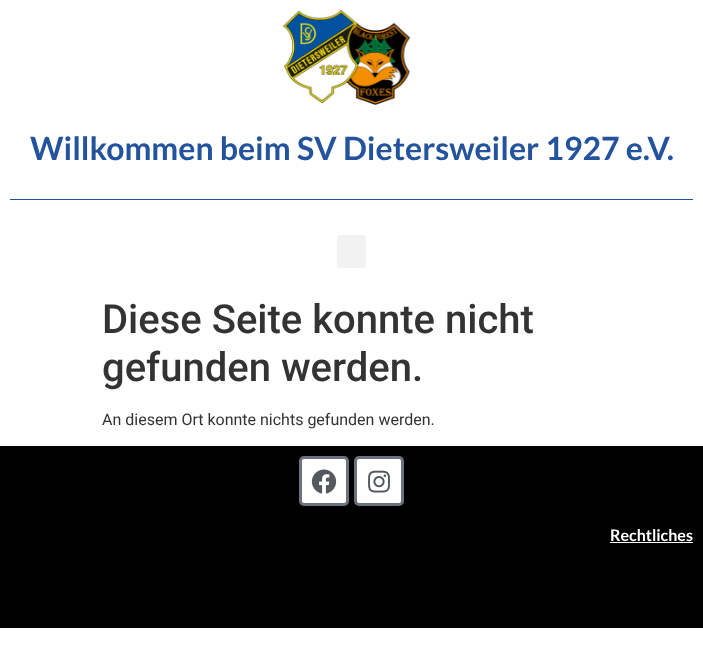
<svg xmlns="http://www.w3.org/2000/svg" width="703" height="667">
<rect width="100%" height="100%" fill="#fff"/>
<image x="283" y="10" width="128" height="95" href="media/1.png"/>
<text x="30" y="160" style="font-family:Lato;font-size:32px;font-weight:bold;fill:#23539d">Willkommen beim SV Dietersweiler 1927 e.V.</text>
<rect x="10" y="199" width="683" height="1" fill="#23539d"/>
<rect x="337" y="235" width="29" height="33" rx="3" fill="#f2f2f2"/>
<text x="102" y="333" style="font-family:Roboto;font-size:40px;font-weight:500;fill:#333">Diese Seite konnte nicht</text>
<text x="102" y="381" style="font-family:Roboto;font-size:40px;font-weight:500;fill:#333">gefunden werden.</text>
<text x="102" y="425" style="font-family:Roboto;font-size:16px;fill:#333">An diesem Ort konnte nichts gefunden werden.</text>
<rect y="446" width="703" height="182" fill="#000"/>
<rect x="300.5" y="457.5" width="47" height="47" rx="3.5" fill="#fff" stroke="#69727d" stroke-width="3"/>
<image x="311" y="469" width="26" height="25" href="media/2.png"/>
<rect x="355.5" y="457.5" width="47" height="47" rx="3.5" fill="#fff" stroke="#69727d" stroke-width="3"/>
<image x="368" y="470" width="22" height="23" href="media/3.png"/>
<text x="610" y="541" style="font-family:Lato;font-size:16px;font-weight:bold;fill:#fff">Rechtliches</text>
<rect x="610" y="542" width="83" height="1" fill="#fff"/>
</svg>
